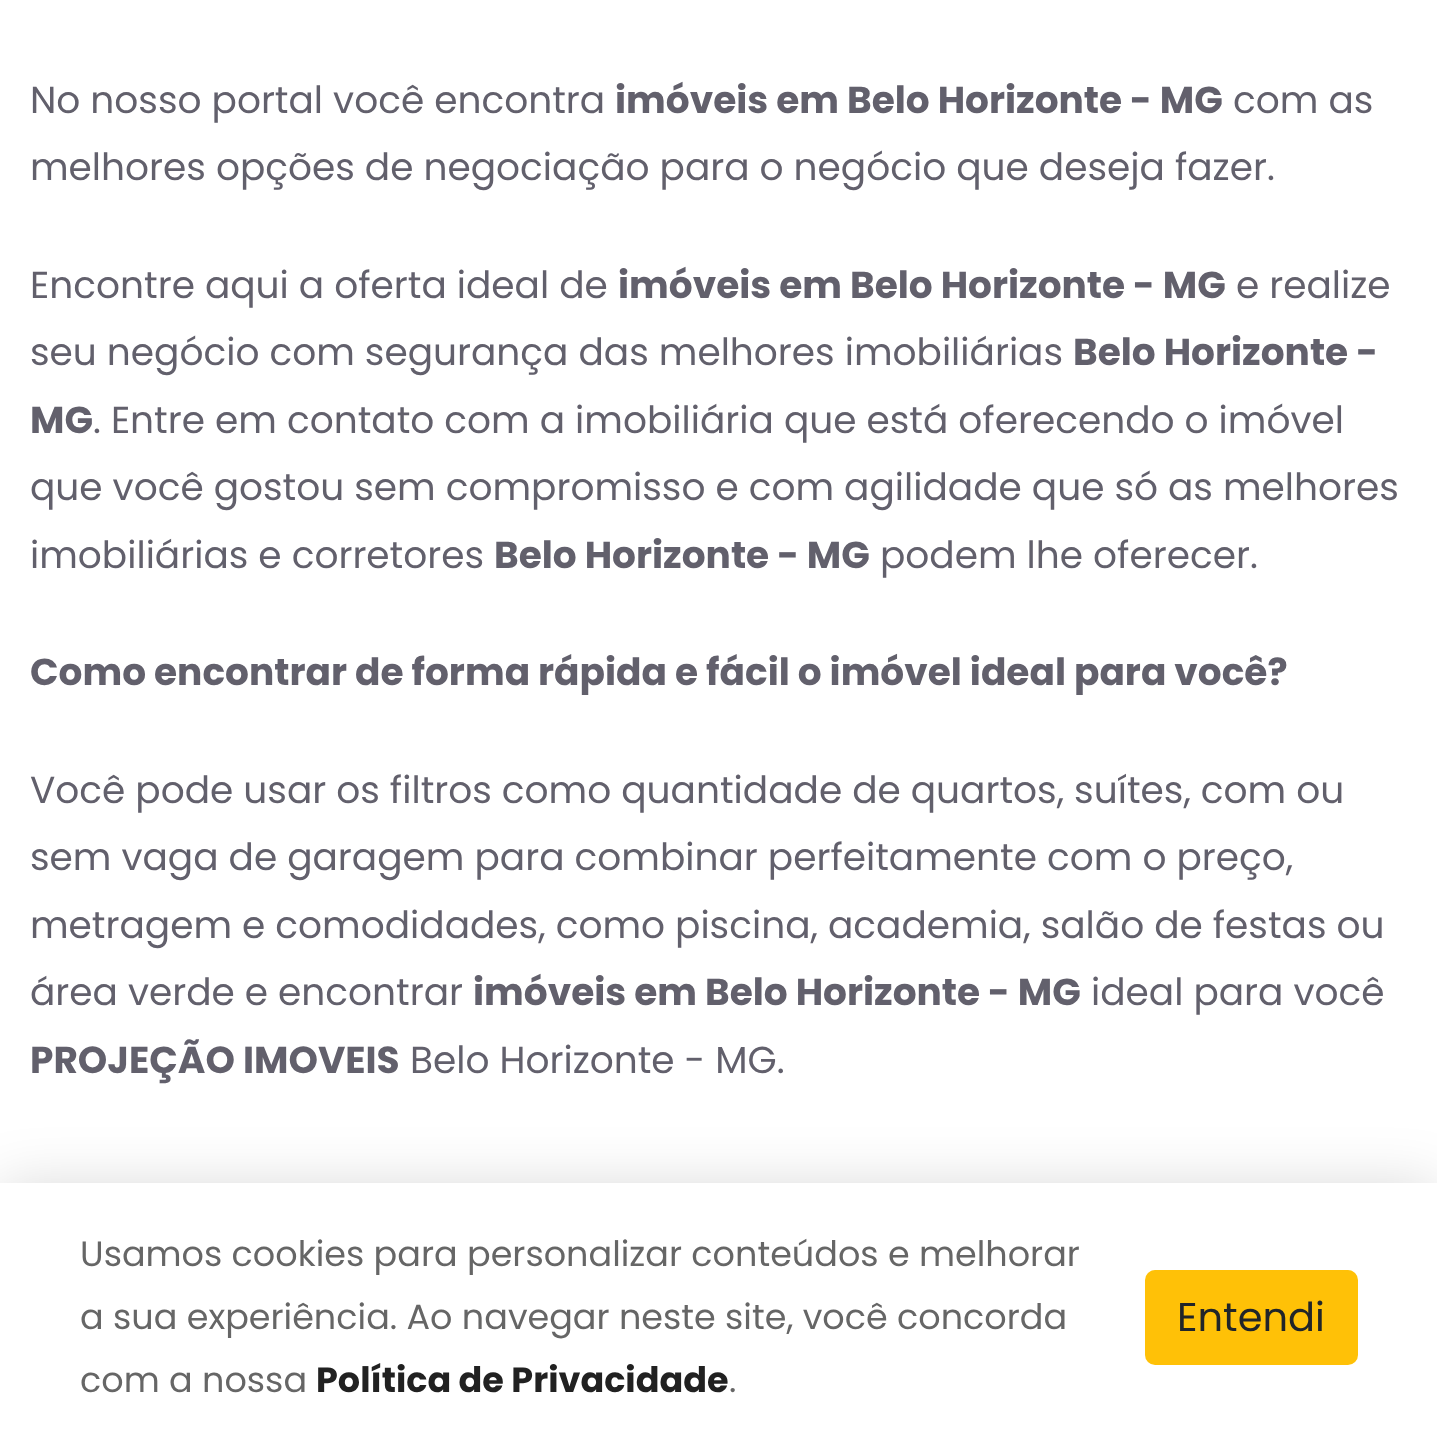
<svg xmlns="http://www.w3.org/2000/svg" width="1437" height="1451">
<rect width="100%" height="100%" fill="#fff"/>
<text x="30" y="113" style="font-family:Poppins;font-size:37.5px;fill:#62606c">No nosso portal você encontra</text>
<text x="615" y="113" style="font-family:Poppins;font-size:37.5px;font-weight:bold;fill:#62606c">imóveis em Belo Horizonte - MG</text>
<text x="1233" y="113" style="font-family:Poppins;font-size:37.5px;fill:#62606c">com as</text>
<text x="30" y="180" style="font-family:Poppins;font-size:37.5px;fill:#62606c">melhores opções de negociação para o negócio que deseja fazer.</text>
<text x="30" y="298" style="font-family:Poppins;font-size:37.5px;fill:#62606c">Encontre aqui a oferta ideal de</text>
<text x="618" y="298" style="font-family:Poppins;font-size:37.5px;font-weight:bold;fill:#62606c">imóveis em Belo Horizonte - MG</text>
<text x="1236" y="298" style="font-family:Poppins;font-size:37.5px;fill:#62606c">e realize</text>
<text x="30" y="365" style="font-family:Poppins;font-size:37.5px;fill:#62606c">seu negócio com segurança das melhores imobiliárias</text>
<text x="1073" y="365" style="font-family:Poppins;font-size:37.5px;font-weight:bold;fill:#62606c">Belo Horizonte -</text>
<text x="30" y="433" style="font-family:Poppins;font-size:37.5px;font-weight:bold;fill:#62606c">MG</text>
<text x="93" y="433" style="font-family:Poppins;font-size:37.5px;fill:#62606c">. Entre em contato com a imobiliária que está oferecendo o imóvel</text>
<text x="30" y="500" style="font-family:Poppins;font-size:37.5px;fill:#62606c">que você gostou sem compromisso e com agilidade que só as melhores</text>
<text x="30" y="568" style="font-family:Poppins;font-size:37.5px;fill:#62606c">imobiliárias e corretores</text>
<text x="494" y="568" style="font-family:Poppins;font-size:37.5px;font-weight:bold;fill:#62606c">Belo Horizonte - MG</text>
<text x="880" y="568" style="font-family:Poppins;font-size:37.5px;fill:#62606c">podem lhe oferecer.</text>
<text x="30" y="685" style="font-family:Poppins;font-size:37.5px;font-weight:bold;fill:#62606c">Como encontrar de forma rápida e fácil o imóvel ideal para você?</text>
<text x="30" y="803" style="font-family:Poppins;font-size:37.5px;fill:#62606c">Você pode usar os filtros como quantidade de quartos, suítes, com ou</text>
<text x="30" y="870" style="font-family:Poppins;font-size:37.5px;fill:#62606c">sem vaga de garagem para combinar perfeitamente com o preço,</text>
<text x="30" y="938" style="font-family:Poppins;font-size:37.5px;fill:#62606c">metragem e comodidades, como piscina, academia, salão de festas ou</text>
<text x="30" y="1005" style="font-family:Poppins;font-size:37.5px;fill:#62606c">área verde e encontrar</text>
<text x="473" y="1005" style="font-family:Poppins;font-size:37.5px;font-weight:bold;fill:#62606c">imóveis em Belo Horizonte - MG</text>
<text x="1091" y="1005" style="font-family:Poppins;font-size:37.5px;fill:#62606c">ideal para você</text>
<text x="30" y="1073" style="font-family:Poppins;font-size:37.5px;font-weight:bold;fill:#62606c">PROJEÇÃO IMOVEIS</text>
<text x="410" y="1073" style="font-family:Poppins;font-size:37.5px;fill:#62606c">Belo Horizonte - MG.</text>
<rect y="1188" width="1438" height="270" fill="#00000029" filter="blur(30px)"/>
<rect y="1183" width="1437" height="268" fill="#fff"/>
<text x="80" y="1266" style="font-family:Poppins;font-size:35px;fill:#666">Usamos cookies para personalizar conteúdos e melhorar</text>
<text x="80" y="1329" style="font-family:Poppins;font-size:35px;fill:#666">a sua experiência. Ao navegar neste site, você concorda</text>
<text x="80" y="1392" style="font-family:Poppins;font-size:35px;fill:#666">com a nossa</text>
<text x="316" y="1392" style="font-family:Poppins;font-size:35px;font-weight:bold;fill:#212121">Política de Privacidade</text>
<text x="729" y="1392" style="font-family:Poppins;font-size:35px;fill:#666">.</text>
<rect x="1145" y="1270" width="213" height="95" rx="10" fill="#ffc107"/>
<text x="1177" y="1331" style="font-family:Poppins;font-size:40px;fill:#212529">Entendi</text>
</svg>
